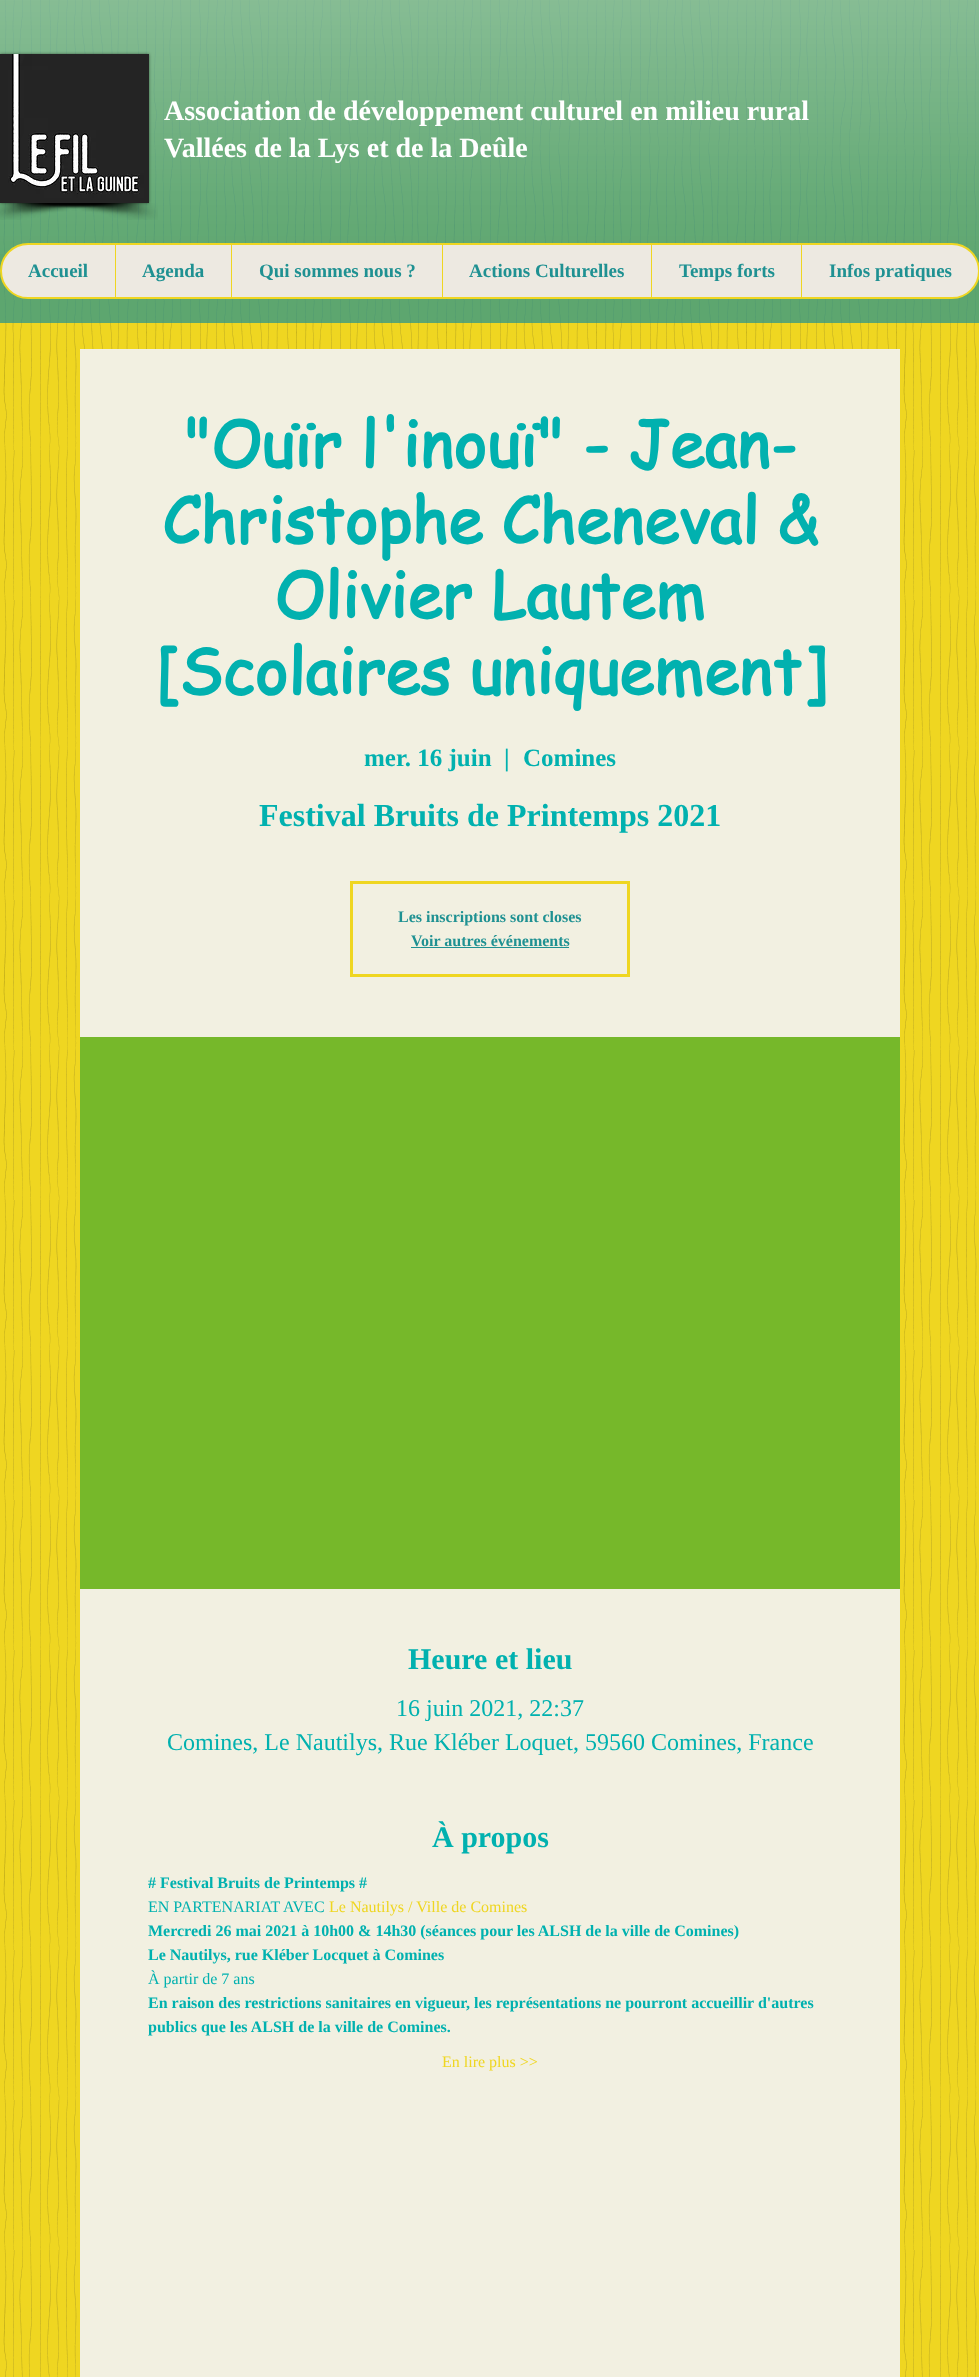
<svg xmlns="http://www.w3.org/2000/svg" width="979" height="2377">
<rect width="100%" height="100%" fill="#efd621"/>
<image x="3" y="0" width="974" height="2377" href="media/1.png"/>
<rect width="979" height="323" fill="#1f9192b3"/>
<image x="0" y="0" width="979" height="254" href="media/2.png"/>
<rect y="54" width="149" height="149" fill="#00000080" filter="blur(1.5px)"/>
<image x="0" y="54" width="149" height="149" href="media/3.png"/>
<image x="0" y="203" width="138" height="17" href="media/4.png"/>
<image x="17" y="203" width="141" height="17" href="media/5.png"/>
<text x="164" y="120" style="font-family:Liberation Serif;font-size:28px;font-weight:bold;fill:#fff">Association de développement culturel en milieu rural</text>
<text x="164" y="157" style="font-family:Liberation Serif;font-size:28px;font-weight:bold;fill:#fff">Vallées de la Lys et de la Deûle</text>
<rect x="1" y="244" width="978" height="54" rx="27" fill="#ede9e1" stroke="#efd621" stroke-width="2"/>
<text x="28" y="277" style="font-family:Liberation Serif;font-size:19px;font-weight:bold;fill:#1f9192">Accueil</text>
<rect x="115" y="245" width="1" height="52" fill="#efd621"/>
<text x="142" y="277" style="font-family:Liberation Serif;font-size:19px;font-weight:bold;fill:#1f9192">Agenda</text>
<rect x="231" y="245" width="1" height="52" fill="#efd621"/>
<text x="259" y="277" style="font-family:Liberation Serif;font-size:19px;font-weight:bold;fill:#1f9192">Qui sommes nous ?</text>
<rect x="442" y="245" width="1" height="52" fill="#efd621"/>
<text x="469" y="277" style="font-family:Liberation Serif;font-size:19px;font-weight:bold;fill:#1f9192">Actions Culturelles</text>
<rect x="651" y="245" width="1" height="52" fill="#efd621"/>
<text x="679" y="277" style="font-family:Liberation Serif;font-size:19px;font-weight:bold;fill:#1f9192">Temps forts</text>
<rect x="801" y="245" width="1" height="52" fill="#efd621"/>
<text x="829" y="277" style="font-family:Liberation Serif;font-size:19px;font-weight:bold;fill:#1f9192">Infos pratiques</text>
<rect x="80" y="349" width="820" height="2028" fill="#f2f0e1"/>
<text x="184" y="467" style="font-family:'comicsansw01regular';font-size:63px;font-weight:bold;fill:#01b1af">"Ouïr l'inouï" - Jean-</text>
<text x="162" y="543" style="font-family:'comicsansw01regular';font-size:63px;font-weight:bold;fill:#01b1af">Christophe Cheneval &amp;</text>
<text x="274" y="618" style="font-family:'comicsansw01regular';font-size:63px;font-weight:bold;fill:#01b1af">Olivier Lautem</text>
<text x="155" y="694" style="font-family:'comicsansw01regular';font-size:63px;font-weight:bold;fill:#01b1af">[Scolaires uniquement]</text>
<text x="364" y="766" style="font-family:Liberation Serif;font-size:25px;font-weight:bold;fill:#01b1af">mer. 16 juin</text>
<text x="504" y="766" style="font-family:Liberation Serif;font-size:25px;font-weight:bold;fill:#01b1af">|</text>
<text x="523" y="766" style="font-family:Liberation Serif;font-size:25px;font-weight:bold;fill:#01b1af">Comines</text>
<text x="259" y="826" style="font-family:Liberation Serif;font-size:32px;font-weight:bold;fill:#01b1af">Festival Bruits de Printemps 2021</text>
<rect x="351.5" y="882.5" width="277" height="93" fill="none" stroke="#efd621" stroke-width="3"/>
<text x="398" y="922" style="font-family:Liberation Serif;font-size:16px;font-weight:bold;fill:#1f9192">Les inscriptions sont closes</text>
<text x="411" y="946" style="font-family:Liberation Serif;font-size:16px;font-weight:bold;fill:#1f9192">Voir autres événements</text>
<rect x="411" y="947" width="158" height="1" fill="#1f9192"/>
<rect x="80" y="1037" width="820" height="552" fill="#76b82a"/>
<text x="408" y="1669" style="font-family:Liberation Serif;font-size:30px;font-weight:bold;fill:#01b1af">Heure et lieu</text>
<text x="396" y="1716" style="font-family:Liberation Serif;font-size:24px;fill:#01b1af">16 juin 2021, 22:37</text>
<text x="167" y="1750" style="font-family:Liberation Serif;font-size:24px;fill:#01b1af">Comines, Le Nautilys, Rue Kléber Loquet, 59560 Comines, France</text>
<text x="432" y="1847" style="font-family:Liberation Serif;font-size:30px;font-weight:bold;fill:#01b1af">À propos</text>
<text x="148" y="1888" style="font-family:Liberation Serif;font-size:16px;font-weight:bold;fill:#01b1af"># Festival Bruits de Printemps #</text>
<text x="148" y="1912" style="font-family:Liberation Serif;font-size:16px;fill:#01b1af">EN PARTENARIAT AVEC</text>
<text x="329" y="1912" style="font-family:Liberation Serif;font-size:16px;fill:#efd621">Le Nautilys / Ville de Comines</text>
<text x="148" y="1936" style="font-family:Liberation Serif;font-size:16px;font-weight:bold;fill:#01b1af">Mercredi 26 mai 2021 à 10h00 &amp; 14h30 (séances pour les ALSH de la ville de Comines)</text>
<text x="148" y="1960" style="font-family:Liberation Serif;font-size:16px;font-weight:bold;fill:#01b1af">Le Nautilys, rue Kléber Locquet à Comines</text>
<text x="148" y="1984" style="font-family:Liberation Serif;font-size:16px;fill:#01b1af">À partir de 7 ans</text>
<text x="148" y="2008" style="font-family:Liberation Serif;font-size:16px;font-weight:bold;fill:#01b1af">En raison des restrictions sanitaires en vigueur, les représentations ne pourront accueillir d'autres</text>
<text x="148" y="2032" style="font-family:Liberation Serif;font-size:16px;font-weight:bold;fill:#01b1af">publics que les ALSH de la ville de Comines.</text>
<text x="442" y="2067" style="font-family:Liberation Serif;font-size:16px;fill:#efd621">En lire plus &gt;&gt;</text>
</svg>
